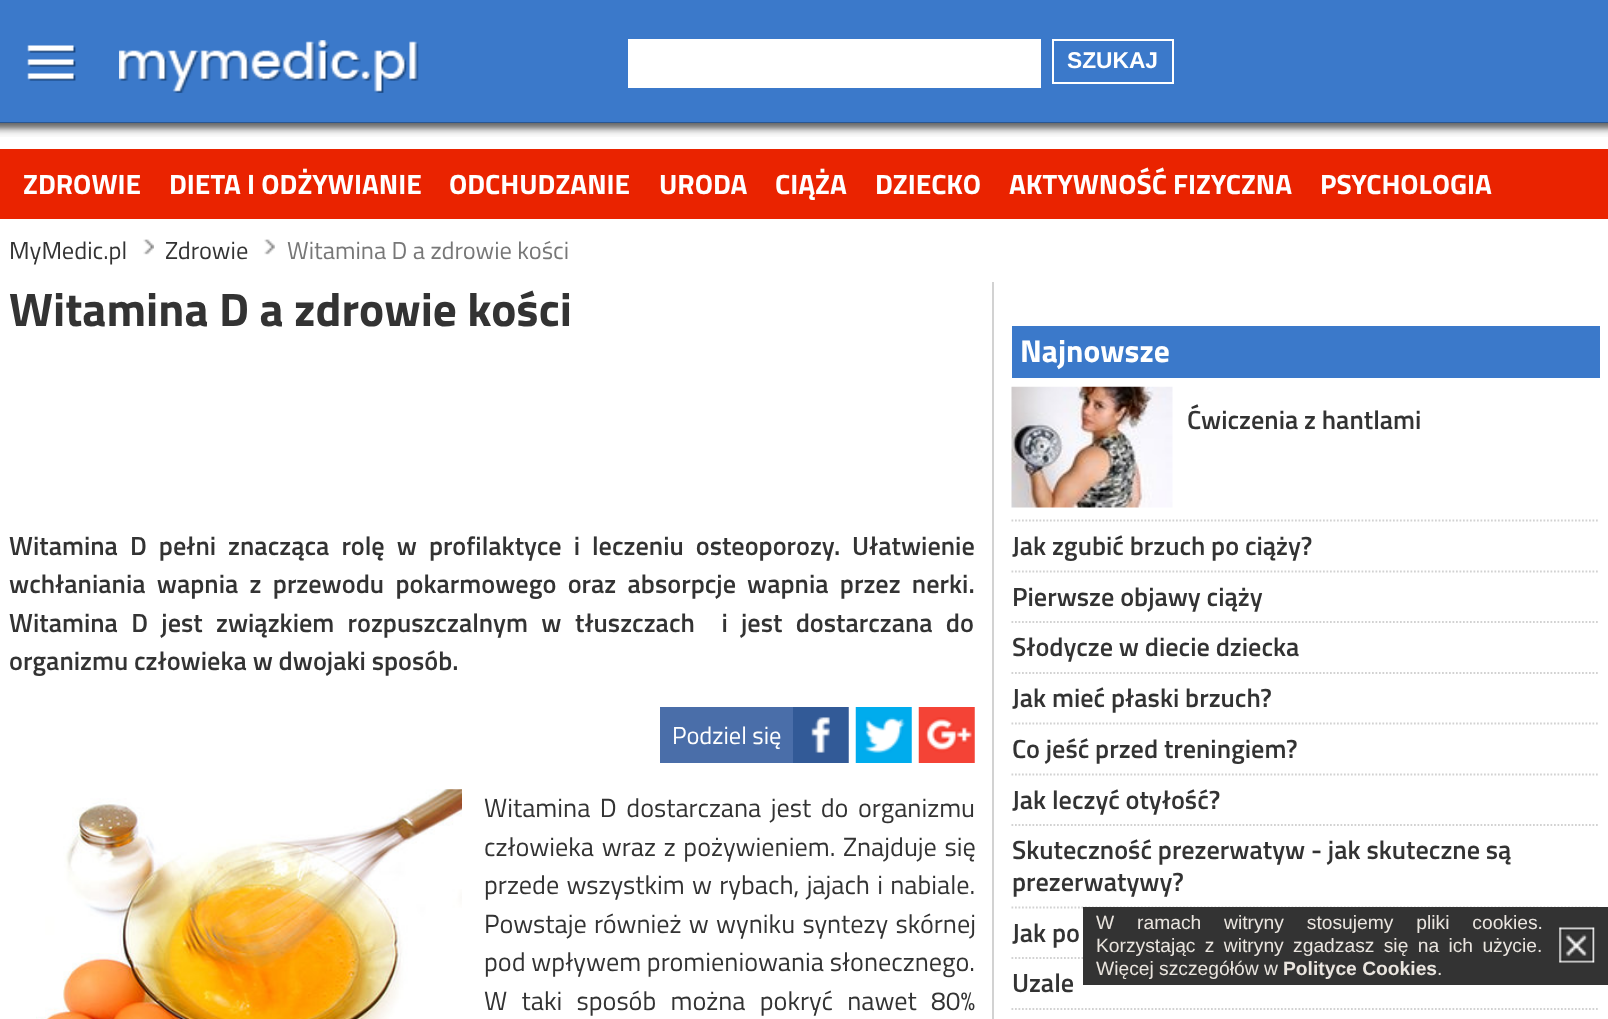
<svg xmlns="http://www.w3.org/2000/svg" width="1608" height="1019">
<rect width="100%" height="100%" fill="#fff"/>
<rect width="1608" height="123" fill="#3b79ca"/>
<image x="27" y="45" width="49" height="36" href="media/1.png"/>
<image x="119" y="40" width="300" height="53" href="media/2.png"/>
<rect x="628" y="39" width="413" height="49" fill="#fff"/>
<rect x="1053" y="40" width="120" height="43" fill="none" stroke="#fff" stroke-width="2"/>
<text x="1067" y="68" style="font-family:Liberation Sans;font-size:22.75px;font-weight:bold;fill:#fff">SZUKAJ</text>
<image x="0" y="122" width="1608" height="15" href="media/3.png"/>
<rect y="149" width="1608" height="70" fill="#ea2300"/>
<text x="23" y="194" style="font-family:Titillium Web;font-size:28px;font-weight:bold;fill:#fff">ZDROWIE</text>
<text x="169" y="194" style="font-family:Titillium Web;font-size:28px;font-weight:bold;fill:#fff">DIETA I ODŻYWIANIE</text>
<text x="449" y="194" style="font-family:Titillium Web;font-size:28px;font-weight:bold;fill:#fff">ODCHUDZANIE</text>
<text x="659" y="194" style="font-family:Titillium Web;font-size:28px;font-weight:bold;fill:#fff">URODA</text>
<text x="775" y="194" style="font-family:Titillium Web;font-size:28px;font-weight:bold;fill:#fff">CIĄŻA</text>
<text x="875" y="194" style="font-family:Titillium Web;font-size:28px;font-weight:bold;fill:#fff">DZIECKO</text>
<text x="1009" y="194" style="font-family:Titillium Web;font-size:28px;font-weight:bold;fill:#fff">AKTYWNOŚĆ FIZYCZNA</text>
<text x="1320" y="194" style="font-family:Titillium Web;font-size:28px;font-weight:bold;fill:#fff">PSYCHOLOGIA</text>
<text x="9" y="259" style="font-family:Titillium Web;font-size:24.5px;fill:#333">MyMedic.pl</text>
<image x="143" y="239" width="11" height="16" href="media/4.png"/>
<text x="165" y="259" style="font-family:Titillium Web;font-size:24.5px;fill:#333">Zdrowie</text>
<image x="264" y="239" width="11" height="16" href="media/5.png"/>
<text x="287" y="259" style="font-family:Titillium Web;font-size:24.5px;fill:#777">Witamina D a zdrowie kości</text>
<text x="9" y="326" style="font-family:Titillium Web;font-size:47.25px;font-weight:bold;fill:#333">Witamina D a zdrowie kości</text>
<text x="9" y="555" word-spacing="6.25" style="font-family:Titillium Web;font-size:26.25px;font-weight:600;fill:#333">Witamina D pełni znacząca rolę w profilaktyce i leczeniu osteoporozy.</text>
<text x="852" y="555" style="font-family:Titillium Web;font-size:26.25px;font-weight:600;fill:#333">Ułatwienie</text>
<text x="9" y="593" word-spacing="5.5" style="font-family:Titillium Web;font-size:26.25px;font-weight:600;fill:#333">wchłaniania wapnia z przewodu pokarmowego oraz absorpcje</text>
<text x="747" y="593" word-spacing="5.5" style="font-family:Titillium Web;font-size:26.25px;font-weight:600;fill:#333">wapnia przez nerki.</text>
<text x="9" y="632" word-spacing="7.5" style="font-family:Titillium Web;font-size:26.25px;font-weight:600;fill:#333">Witamina D jest związkiem rozpuszczalnym w</text>
<text x="575" y="632" word-spacing="7.5" style="font-family:Titillium Web;font-size:26.25px;font-weight:600;fill:#333" xml:space="preserve">tłuszczach  i jest dostarczana do</text>
<text x="9" y="670" style="font-family:Titillium Web;font-size:26.25px;font-weight:600;fill:#333">organizmu człowieka w dwojaki sposób.</text>
<image x="793" y="707" width="56" height="56" href="media/6.png"/>
<rect x="660" y="707" width="133" height="56" fill="#4a6ea9"/>
<text x="672" y="744" style="font-family:Titillium Web;font-size:24.5px;fill:#fff">Podziel się</text>
<image x="855" y="707" width="57" height="56" href="media/7.png"/>
<image x="918" y="707" width="57" height="56" href="media/8.png"/>
<image x="36" y="789" width="426" height="230" href="media/9.png"/>
<text x="484" y="817" word-spacing="3.75" style="font-family:Titillium Web;font-size:26.25px;fill:#333">Witamina D dostarczana jest do organizmu</text>
<text x="484" y="856" word-spacing="2" style="font-family:Titillium Web;font-size:26.25px;fill:#333">człowieka wraz z pożywieniem. Znajduje się</text>
<text x="484" y="894" word-spacing="1.5" style="font-family:Titillium Web;font-size:26.25px;fill:#333">przede wszystkim w rybach, jajach i nabiale.</text>
<text x="484" y="933" word-spacing="1.5" style="font-family:Titillium Web;font-size:26.25px;fill:#333">Powstaje również w wyniku syntezy skórnej</text>
<text x="484" y="971" style="font-family:Titillium Web;font-size:26.25px;fill:#333">pod wpływem promieniowania słonecznego.</text>
<text x="484" y="1010" word-spacing="8.5" style="font-family:Titillium Web;font-size:26.25px;fill:#333">W taki sposób można pokryć nawet 80%</text>
<rect x="992" y="282" width="2" height="737" fill="#d2d2d2"/>
<rect x="1012" y="326" width="588" height="52" fill="#3b79ca"/>
<text x="1020" y="362" style="font-family:Titillium Web;font-size:31.5px;font-weight:bold;fill:#fff">Najnowsze</text>
<path d="M1011.5 520.5h588" fill="none" stroke="#d2d2d2" stroke-width="1.8" stroke-dasharray="1.75 1.75"/>
<image x="1011" y="386" width="162" height="122" href="media/10.png"/>
<text x="1187" y="429" style="font-family:Titillium Web;font-size:26.25px;font-weight:600;fill:#333">Ćwiczenia z hantlami</text>
<path d="M1011.5 571.5h588" fill="none" stroke="#d2d2d2" stroke-width="1.8" stroke-dasharray="1.75 1.75"/>
<text x="1012" y="555" style="font-family:Titillium Web;font-size:26.25px;font-weight:600;fill:#333">Jak zgubić brzuch po ciąży?</text>
<path d="M1011.5 622h588" fill="none" stroke="#d2d2d2" stroke-width="1.8" stroke-dasharray="1.75 1.75"/>
<text x="1012" y="606" style="font-family:Titillium Web;font-size:26.25px;font-weight:600;fill:#333">Pierwsze objawy ciąży</text>
<path d="M1011.5 673h588" fill="none" stroke="#d2d2d2" stroke-width="1.8" stroke-dasharray="1.75 1.75"/>
<text x="1012" y="656" style="font-family:Titillium Web;font-size:26.25px;font-weight:600;fill:#333">Słodycze w diecie dziecka</text>
<path d="M1011.5 723.5h588" fill="none" stroke="#d2d2d2" stroke-width="1.8" stroke-dasharray="1.75 1.75"/>
<text x="1012" y="707" style="font-family:Titillium Web;font-size:26.25px;font-weight:600;fill:#333">Jak mieć płaski brzuch?</text>
<path d="M1011.5 774.5h588" fill="none" stroke="#d2d2d2" stroke-width="1.8" stroke-dasharray="1.75 1.75"/>
<text x="1012" y="758" style="font-family:Titillium Web;font-size:26.25px;font-weight:600;fill:#333">Co jeść przed treningiem?</text>
<path d="M1011.5 825h588" fill="none" stroke="#d2d2d2" stroke-width="1.8" stroke-dasharray="1.75 1.75"/>
<text x="1012" y="809" style="font-family:Titillium Web;font-size:26.25px;font-weight:600;fill:#333">Jak leczyć otyłość?</text>
<path d="M1011.5 907.5h588" fill="none" stroke="#d2d2d2" stroke-width="1.8" stroke-dasharray="1.75 1.75"/>
<text x="1012" y="859" style="font-family:Titillium Web;font-size:26.25px;font-weight:600;fill:#333">Skuteczność prezerwatyw - jak skuteczne są</text>
<text x="1012" y="891" style="font-family:Titillium Web;font-size:26.25px;font-weight:600;fill:#333">prezerwatywy?</text>
<path d="M1011.5 958h588" fill="none" stroke="#d2d2d2" stroke-width="1.8" stroke-dasharray="1.75 1.75"/>
<text x="1012" y="942" style="font-family:Titillium Web;font-size:26.25px;font-weight:600;fill:#333">Jak po</text>
<path d="M1011.5 1009h588" fill="none" stroke="#d2d2d2" stroke-width="1.8" stroke-dasharray="1.75 1.75"/>
<text x="1012" y="992" style="font-family:Titillium Web;font-size:26.25px;font-weight:600;fill:#333">Uzale</text>
<rect x="1083" y="907" width="525" height="78" fill="#333"/>
<text x="1096" y="929" word-spacing="17.5" style="font-family:Liberation Sans;font-size:19.25px;fill:#eae5df">W ramach witryny stosujemy pliki cookies.</text>
<text x="1096" y="952" word-spacing="4" style="font-family:Liberation Sans;font-size:19.25px;fill:#eae5df">Korzystając z witryny zgadzasz się na ich użycie.</text>
<text x="1096" y="975" style="font-family:Liberation Sans;font-size:19.25px;fill:#eae5df">Więcej szczegółów w</text>
<text x="1283" y="975" style="font-family:Liberation Sans;font-size:19.25px;font-weight:bold;fill:#eae5df">Polityce Cookies</text>
<text x="1437" y="975" style="font-family:Liberation Sans;font-size:19.25px;fill:#eae5df">.</text>
<image x="1559" y="927" width="36" height="36" href="media/11.png"/>
</svg>
